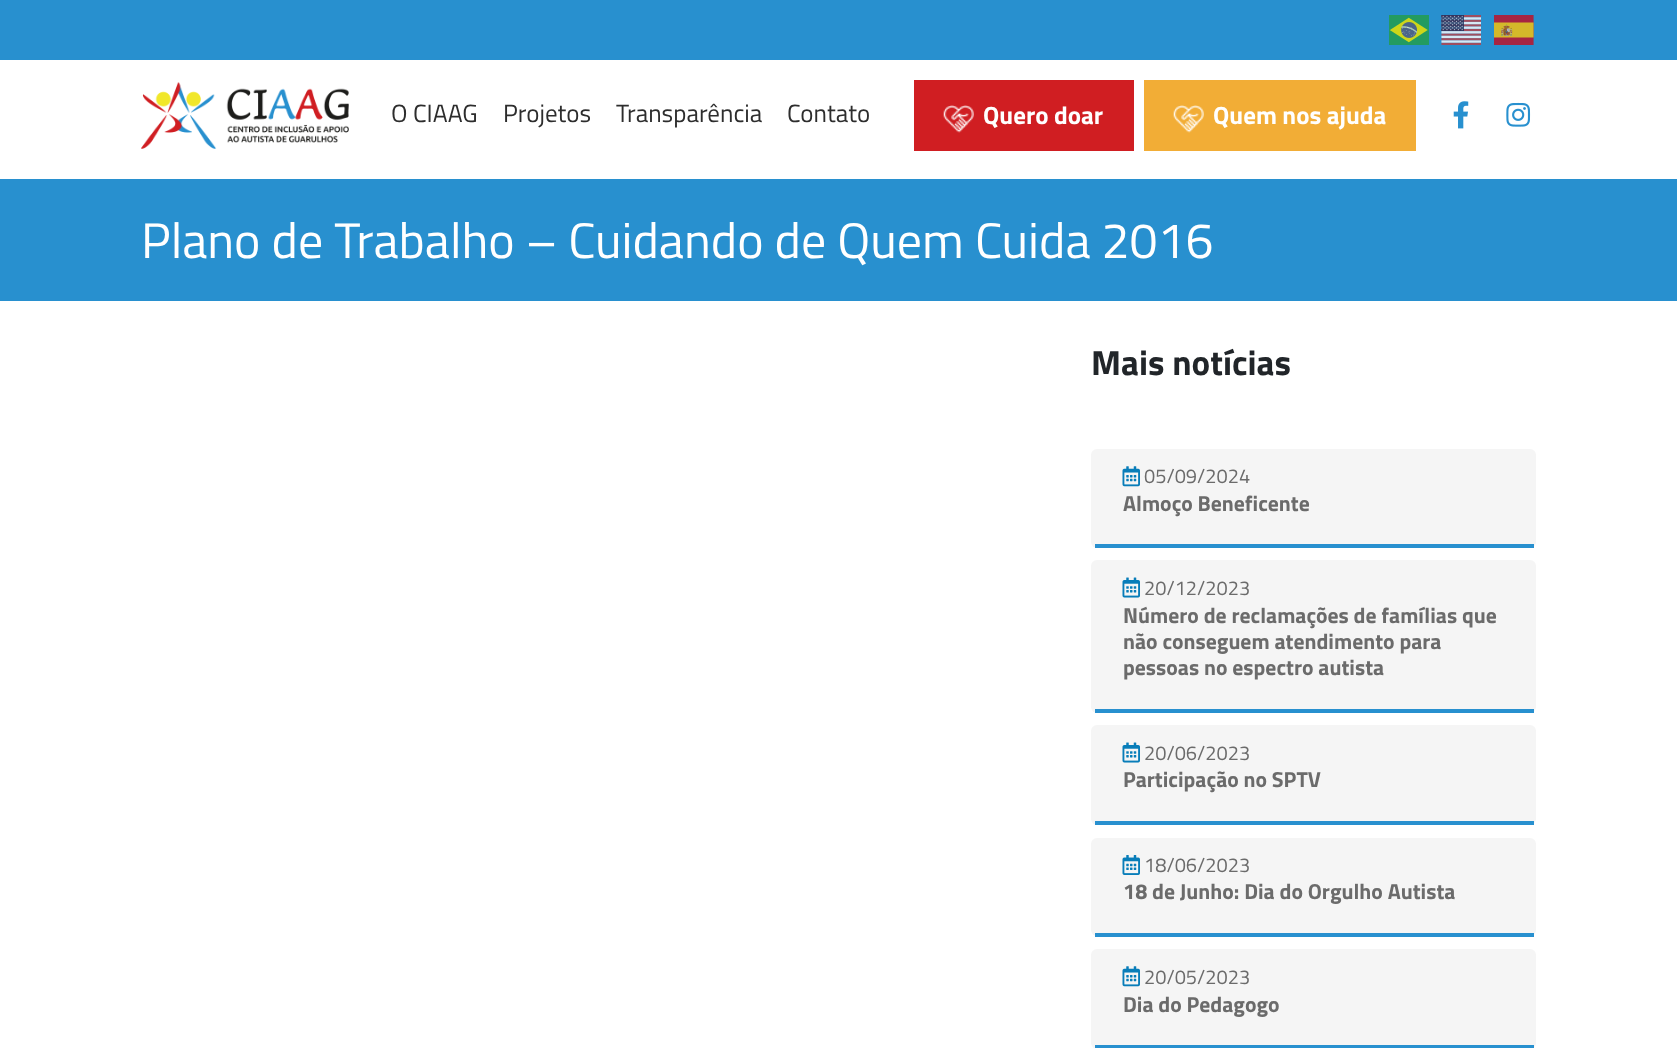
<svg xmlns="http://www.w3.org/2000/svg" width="1677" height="1048">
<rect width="100%" height="100%" fill="#fff"/>
<rect width="1677" height="60" fill="#2890cf"/>
<image x="1389" y="15" width="40" height="30" href="media/1.png"/>
<image x="1441" y="15" width="40" height="30" href="media/2.png"/>
<image x="1494" y="15" width="40" height="30" href="media/3.png"/>
<image x="141" y="82" width="208" height="67" href="media/4.png"/>
<text x="391" y="122" style="font-family:Titillium Web;font-size:25px;fill:#2d2d2d">O CIAAG</text>
<text x="503" y="122" style="font-family:Titillium Web;font-size:25px;fill:#2d2d2d">Projetos</text>
<text x="616" y="122" style="font-family:Titillium Web;font-size:25px;fill:#2d2d2d">Transparência</text>
<text x="787" y="122" style="font-family:Titillium Web;font-size:25px;fill:#2d2d2d">Contato</text>
<rect x="914" y="80" width="220" height="71" fill="#d01e22"/>
<image x="943" y="105" width="31" height="28" href="media/5.png"/>
<text x="983" y="124" style="font-family:Titillium Web;font-size:25px;font-weight:bold;fill:#fff">Quero doar</text>
<rect x="1144" y="80" width="272" height="71" fill="#f2ad36"/>
<image x="1173" y="105" width="31" height="28" href="media/6.png"/>
<text x="1213" y="124" style="font-family:Titillium Web;font-size:25px;font-weight:bold;fill:#fff">Quem nos ajuda</text>
<image x="1453" y="101" width="16" height="28" href="media/7.png"/>
<image x="1506" y="102" width="25" height="25" href="media/8.png"/>
<rect y="179" width="1677" height="122" fill="#2890cf"/>
<text x="141" y="258" style="font-family:Titillium Web;font-size:50px;fill:#fff">Plano de Trabalho – Cuidando de Quem Cuida 2016</text>
<text x="1091" y="375" style="font-family:Titillium Web;font-size:35px;font-weight:bold;fill:#212529">Mais notícias</text>
<rect x="1091" y="449" width="445" height="99" rx="6" fill="#f5f5f5"/>
<rect x="1095" y="544" width="439" height="4" fill="#2890cf"/>
<image x="1122" y="466" width="18" height="21" href="media/9.png"/>
<text x="1144" y="483" style="font-family:Titillium Web;font-size:20px;fill:#6b6b6b">05/09/2024</text>
<text x="1123" y="511" style="font-family:Titillium Web;font-size:21.7px;font-weight:bold;fill:#6b6b6b">Almoço Beneficente</text>
<rect x="1091" y="560" width="445" height="153" rx="6" fill="#f5f5f5"/>
<rect x="1095" y="709" width="439" height="4" fill="#2890cf"/>
<image x="1122" y="577" width="18" height="21" href="media/10.png"/>
<text x="1144" y="595" style="font-family:Titillium Web;font-size:20px;fill:#6b6b6b">20/12/2023</text>
<text x="1123" y="623" style="font-family:Titillium Web;font-size:21.7px;font-weight:bold;fill:#6b6b6b">Número de reclamações de famílias que</text>
<text x="1123" y="649" style="font-family:Titillium Web;font-size:21.7px;font-weight:bold;fill:#6b6b6b">não conseguem atendimento para</text>
<text x="1123" y="675" style="font-family:Titillium Web;font-size:21.7px;font-weight:bold;fill:#6b6b6b">pessoas no espectro autista</text>
<rect x="1091" y="725" width="445" height="100" rx="6" fill="#f5f5f5"/>
<rect x="1095" y="821" width="439" height="4" fill="#2890cf"/>
<image x="1122" y="742" width="18" height="21" href="media/10.png"/>
<text x="1144" y="760" style="font-family:Titillium Web;font-size:20px;fill:#6b6b6b">20/06/2023</text>
<text x="1123" y="787" style="font-family:Titillium Web;font-size:21.7px;font-weight:bold;fill:#6b6b6b">Participação no SPTV</text>
<rect x="1091" y="838" width="445" height="98" rx="6" fill="#f5f5f5"/>
<rect x="1095" y="933" width="439" height="4" fill="#2890cf"/>
<image x="1122" y="855" width="18" height="20" href="media/11.png"/>
<text x="1144" y="872" style="font-family:Titillium Web;font-size:20px;fill:#6b6b6b">18/06/2023</text>
<text x="1123" y="899" style="font-family:Titillium Web;font-size:21.7px;font-weight:bold;fill:#6b6b6b">18 de Junho: Dia do Orgulho Autista</text>
<rect x="1091" y="949" width="445" height="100" rx="6" fill="#f5f5f5"/>
<rect x="1095" y="1045" width="439" height="3" fill="#2890cf"/>
<image x="1122" y="966" width="18" height="21" href="media/9.png"/>
<text x="1144" y="984" style="font-family:Titillium Web;font-size:20px;fill:#6b6b6b">20/05/2023</text>
<text x="1123" y="1012" style="font-family:Titillium Web;font-size:21.7px;font-weight:bold;fill:#6b6b6b">Dia do Pedagogo</text>
</svg>
